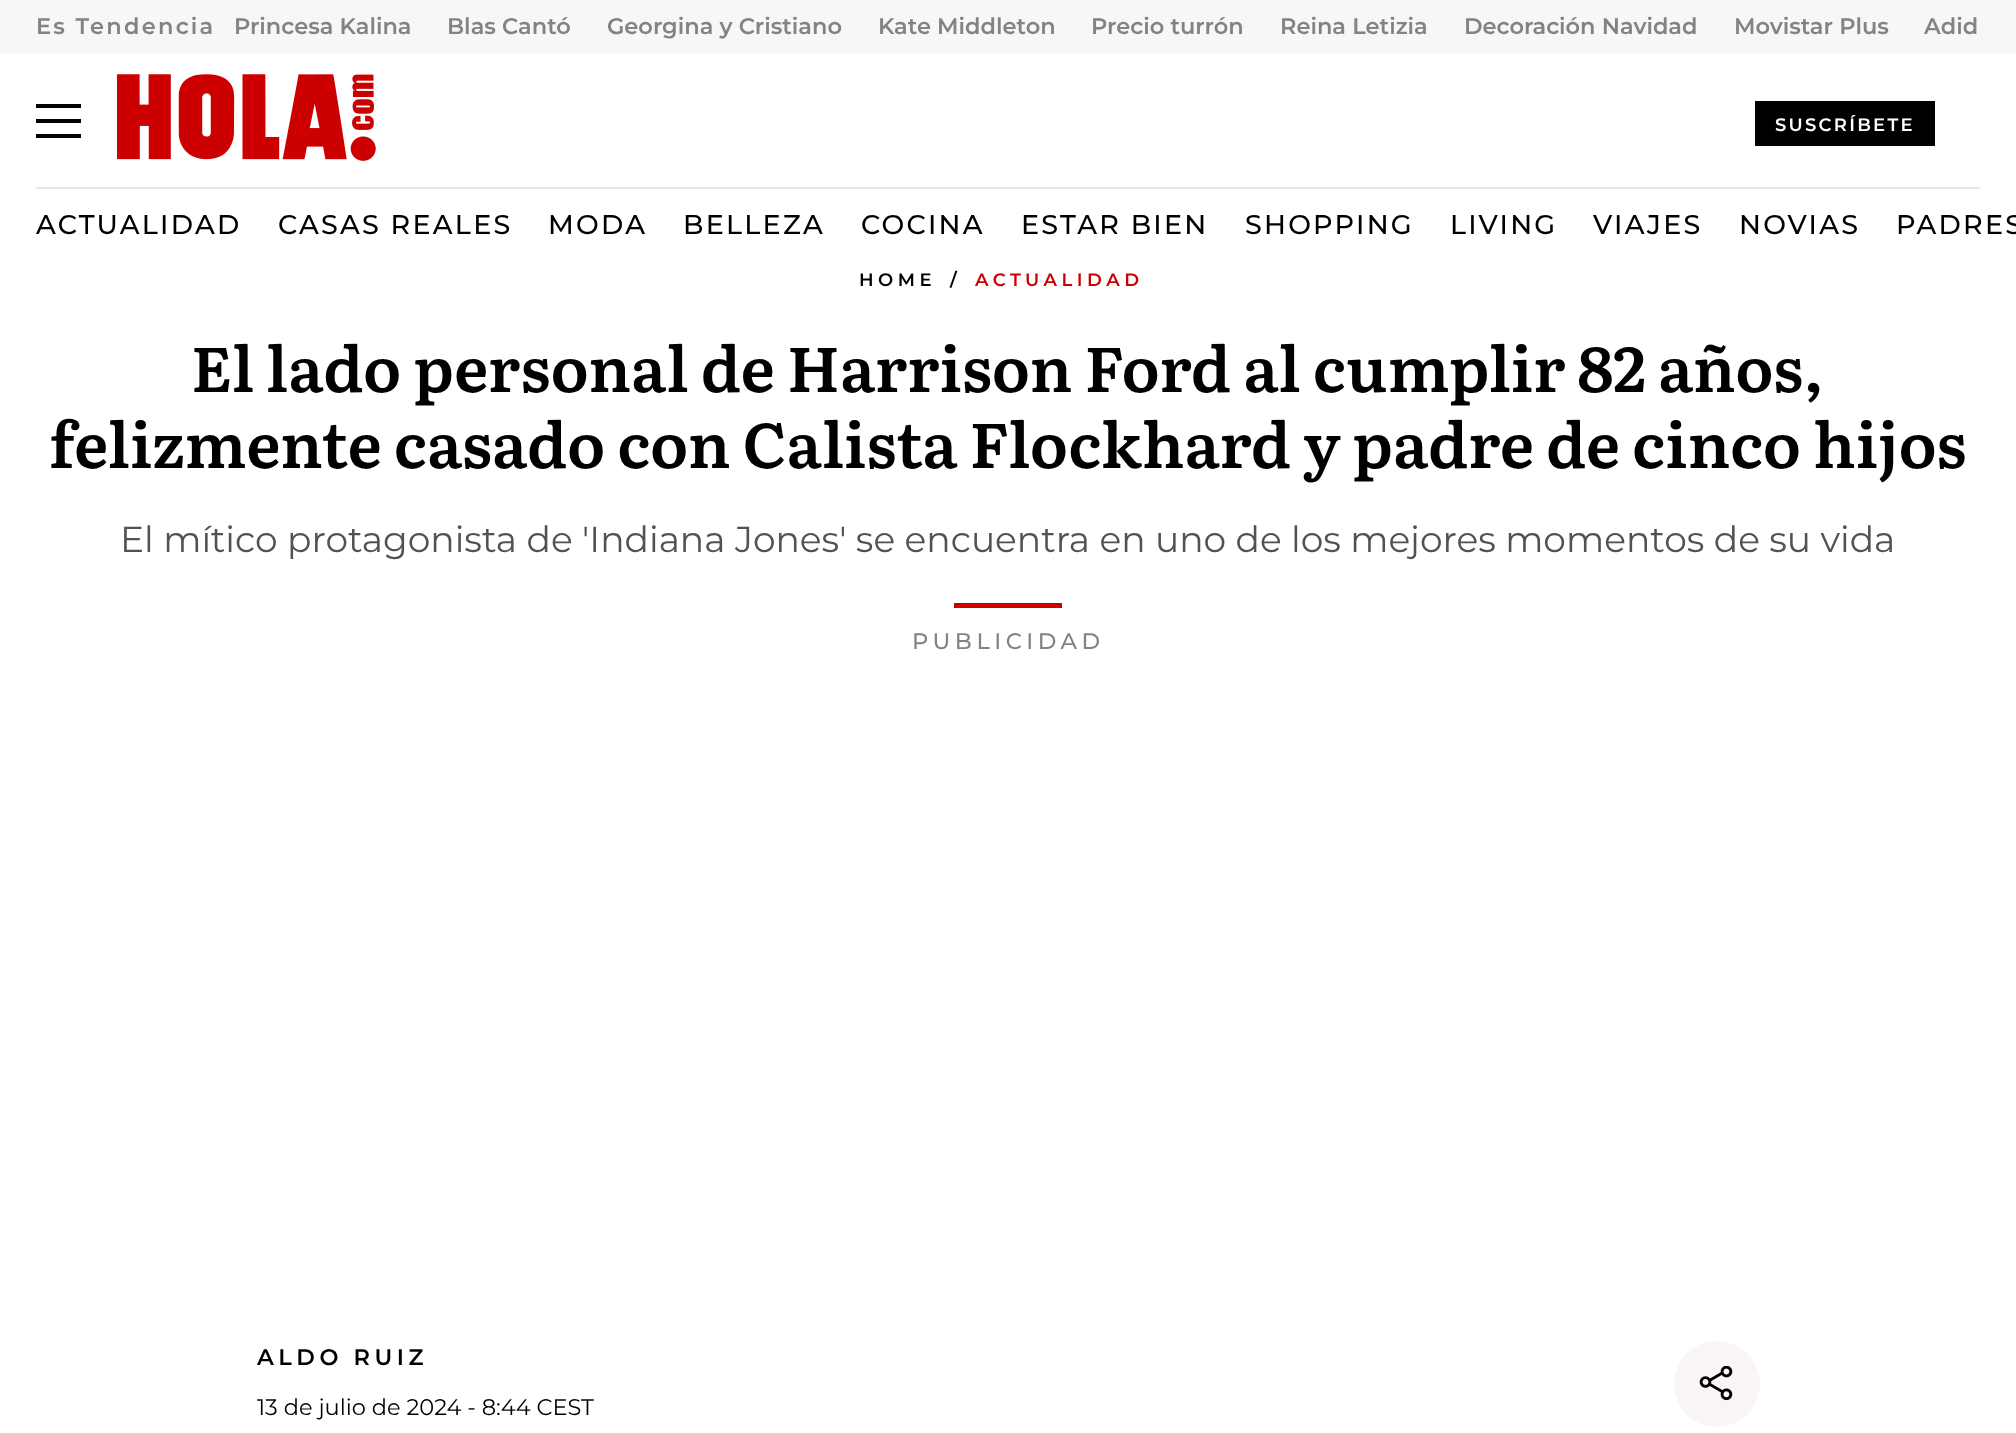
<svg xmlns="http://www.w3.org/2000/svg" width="2016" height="1433">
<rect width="100%" height="100%" fill="#fff"/>
<rect width="2016" height="54" fill="#f7f7f7"/>
<text x="36" y="34" style="font-family:Montserrat;font-size:22.5px;font-weight:600;letter-spacing:2.25px;fill:#838383">Es Tendencia</text>
<text x="234" y="34" style="font-family:Montserrat;font-size:22.5px;font-weight:600;fill:#838383">Princesa Kalina</text>
<text x="447" y="34" style="font-family:Montserrat;font-size:22.5px;font-weight:600;fill:#838383">Blas Cantó</text>
<text x="607" y="34" style="font-family:Montserrat;font-size:22.5px;font-weight:600;fill:#838383">Georgina y Cristiano</text>
<text x="878" y="34" style="font-family:Montserrat;font-size:22.5px;font-weight:600;fill:#838383">Kate Middleton</text>
<text x="1091" y="34" style="font-family:Montserrat;font-size:22.5px;font-weight:600;fill:#838383">Precio turrón</text>
<text x="1280" y="34" style="font-family:Montserrat;font-size:22.5px;font-weight:600;fill:#838383">Reina Letizia</text>
<text x="1464" y="34" style="font-family:Montserrat;font-size:22.5px;font-weight:600;fill:#838383">Decoración Navidad</text>
<text x="1734" y="34" style="font-family:Montserrat;font-size:22.5px;font-weight:600;fill:#838383">Movistar Plus</text>
<text x="1924" y="34" style="font-family:Montserrat;font-size:22.5px;font-weight:600;fill:#838383">Adid</text>
<rect x="36" y="187" width="1944" height="2" fill="#e6e6e6"/>
<path d="M81 108h-45v-4h45zm0 15h-45v-4h45zm0 15h-45v-4h45z" fill="#000" fill-rule="evenodd"/>
<image x="117" y="74" width="259" height="87" href="media/1.png"/>
<rect x="1755" y="101" width="180" height="45" fill="#000"/>
<text x="1775" y="131" style="font-family:Montserrat;font-size:18px;font-weight:600;letter-spacing:2.25px;fill:#fff">SUSCRÍBETE</text>
<text x="36" y="234" style="font-family:Montserrat;font-size:27px;font-weight:500;letter-spacing:2.25px;fill:#000">ACTUALIDAD</text>
<text x="278" y="234" style="font-family:Montserrat;font-size:27px;font-weight:500;letter-spacing:2.25px;fill:#000">CASAS REALES</text>
<text x="548" y="234" style="font-family:Montserrat;font-size:27px;font-weight:500;letter-spacing:2.25px;fill:#000">MODA</text>
<text x="683" y="234" style="font-family:Montserrat;font-size:27px;font-weight:500;letter-spacing:2.25px;fill:#000">BELLEZA</text>
<text x="861" y="234" style="font-family:Montserrat;font-size:27px;font-weight:500;letter-spacing:2.25px;fill:#000">COCINA</text>
<text x="1021" y="234" style="font-family:Montserrat;font-size:27px;font-weight:500;letter-spacing:2.25px;fill:#000">ESTAR BIEN</text>
<text x="1245" y="234" style="font-family:Montserrat;font-size:27px;font-weight:500;letter-spacing:2.25px;fill:#000">SHOPPING</text>
<text x="1450" y="234" style="font-family:Montserrat;font-size:27px;font-weight:500;letter-spacing:2.25px;fill:#000">LIVING</text>
<text x="1593" y="234" style="font-family:Montserrat;font-size:27px;font-weight:500;letter-spacing:2.25px;fill:#000">VIAJES</text>
<text x="1739" y="234" style="font-family:Montserrat;font-size:27px;font-weight:500;letter-spacing:2.25px;fill:#000">NOVIAS</text>
<text x="1896" y="234" style="font-family:Montserrat;font-size:27px;font-weight:500;letter-spacing:2.25px;fill:#000">PADRES</text>
<text x="859" y="286" style="font-family:Montserrat;font-size:18px;font-weight:600;letter-spacing:4.5px;fill:#000">HOME</text>
<text x="950" y="286" style="font-family:Montserrat;font-size:18px;font-weight:600;letter-spacing:4.5px;fill:#000">/</text>
<text x="975" y="286" style="font-family:Montserrat;font-size:18px;font-weight:600;letter-spacing:4.5px;fill:#c00">ACTUALIDAD</text>
<text x="191" y="392" word-spacing="-0.5" style="font-family:Literata;font-size:63px;font-weight:600;fill:#000">El lado personal de Harrison Ford al cumplir 82 años,</text>
<text x="49" y="468" word-spacing="-0.75" style="font-family:Literata;font-size:63px;font-weight:600;fill:#000">felizmente casado con Calista Flockhard y padre de cinco hijos</text>
<text x="120" y="552" style="font-family:Montserrat;font-size:36px;fill:#525252">El mítico protagonista de 'Indiana Jones' se encuentra en uno de los mejores momentos de su vida</text>
<rect x="954" y="603" width="108" height="5" fill="#c00"/>
<text x="912" y="649" style="font-family:Montserrat;font-size:22.5px;font-weight:500;letter-spacing:4.5px;fill:#838383">PUBLICIDAD</text>
<text x="257" y="1365" style="font-family:Montserrat;font-size:22.5px;font-weight:600;letter-spacing:4.5px;fill:#000">ALDO RUIZ</text>
<text x="257" y="1415" style="font-family:Montserrat;font-size:22.5px;fill:#000">13 de julio de 2024 - 8:44 CEST</text>
<circle cx="1717" cy="1384" r="43" fill="#f9f5f5"/>
<image x="1699" y="1366" width="34" height="35" href="media/2.png"/>
</svg>
